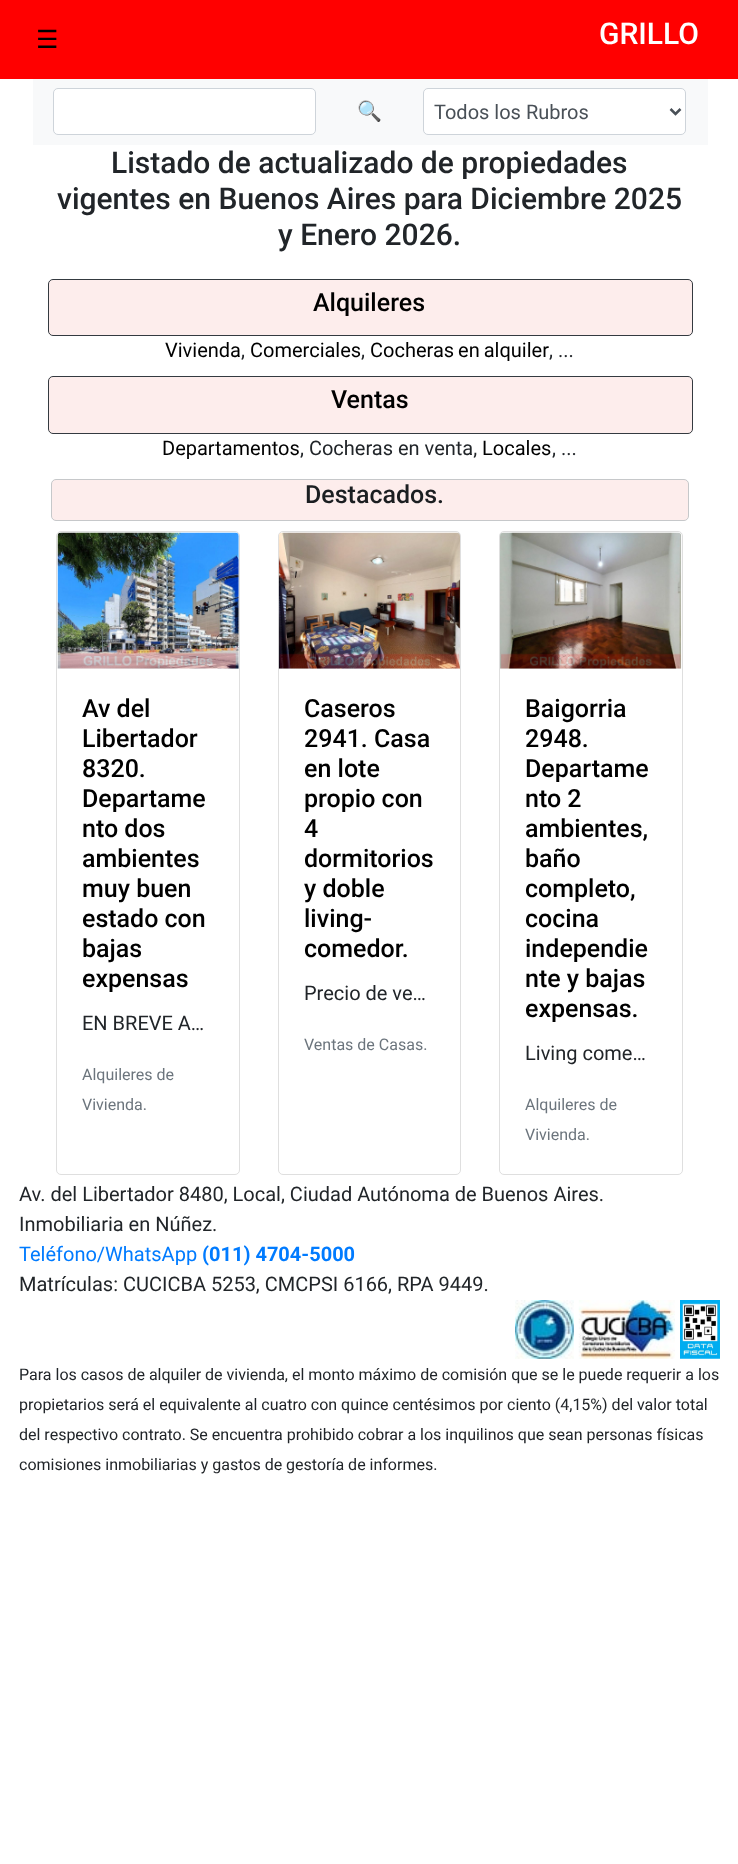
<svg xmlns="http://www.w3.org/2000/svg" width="738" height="1864">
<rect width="100%" height="100%" fill="#fff"/>
<rect width="738" height="79" fill="#f00"/>
<text x="36" y="48" style="font-family:DejaVu Sans;font-size:25px;fill:#000">☰</text>
<text x="599" y="44" style="font-family:Roboto;font-size:30px;font-weight:500;fill:#fff">GRILLO</text>
<rect x="33" y="79" width="675" height="66" fill="#f8f9fa"/>
<rect x="53.5" y="88.5" width="262" height="46" rx="4.5" fill="#fff" stroke="#ced4da"/>
<text x="357" y="118" style="font-family:Noto Color Emoji;font-size:20px;fill:#000">🔍</text>
<rect x="423.5" y="88.5" width="262" height="46" rx="4.5" fill="#fff" stroke="#ced4da"/>
<path d="M670.5 109l5 5l5-5" fill="none" stroke="#495057" stroke-width="2.5"/>
<text x="434" y="119" style="font-family:Roboto;font-size:20px;fill:#495057">Todos los Rubros</text>
<text x="111" y="173" style="font-family:Roboto;font-size:30px;font-weight:500;fill:#212529">Listado de actualizado de propiedades</text>
<text x="57" y="209" style="font-family:Roboto;font-size:30px;font-weight:500;fill:#212529">vigentes en Buenos Aires para Diciembre 2025</text>
<text x="278" y="245" style="font-family:Roboto;font-size:30px;font-weight:500;fill:#212529">y Enero 2026.</text>
<rect x="48.5" y="279.5" width="644" height="56" rx="4.5" fill="#fdedec" stroke="#343a40"/>
<text x="313" y="311" style="font-family:Roboto;font-size:25px;font-weight:500;fill:#000">Alquileres</text>
<text x="165" y="357" style="font-family:Roboto;font-size:20px;fill:#000">Vivienda</text>
<text x="241" y="357" style="font-family:Roboto;font-size:20px;fill:#212529">,</text>
<text x="250" y="357" style="font-family:Roboto;font-size:20px;fill:#000">Comerciales</text>
<text x="361" y="357" style="font-family:Roboto;font-size:20px;fill:#212529">,</text>
<text x="370" y="357" word-spacing="-1" style="font-family:Roboto;font-size:20px;fill:#000">Cocheras en alquiler</text>
<text x="549" y="357" style="font-family:Roboto;font-size:20px;fill:#212529">, ...</text>
<rect x="48.5" y="376.5" width="644" height="57" rx="4.5" fill="#fdedec" stroke="#343a40"/>
<text x="331" y="408" style="font-family:Roboto;font-size:25px;font-weight:500;fill:#000">Ventas</text>
<text x="162" y="455" style="font-family:Roboto;font-size:20px;fill:#000">Departamentos</text>
<text x="300" y="455" style="font-family:Roboto;font-size:20px;fill:#212529">, Cocheras en venta,</text>
<text x="482" y="455" style="font-family:Roboto;font-size:20px;fill:#000">Locales</text>
<text x="552" y="455" style="font-family:Roboto;font-size:20px;fill:#212529">, ...</text>
<rect x="51.5" y="479.5" width="637" height="41" rx="4.5" fill="#fdedec" stroke="#c6c8ca"/>
<text x="305" y="503" style="font-family:Roboto;font-size:25px;font-weight:500;fill:#1b1e21">Destacados.</text>
<rect x="56.5" y="531.5" width="183" height="643" rx="4.5" fill="none" stroke="#dfdfdf"/>
<image x="57" y="532" width="182" height="137" href="media/1.png"/>
<text x="82" y="717" style="font-family:Roboto;font-size:25px;font-weight:500;fill:#000">Av del</text>
<text x="82" y="747" style="font-family:Roboto;font-size:25px;font-weight:500;fill:#000">Libertador</text>
<text x="82" y="777" style="font-family:Roboto;font-size:25px;font-weight:500;fill:#000">8320.</text>
<text x="82" y="807" style="font-family:Roboto;font-size:25px;font-weight:500;fill:#000">Departame</text>
<text x="82" y="837" style="font-family:Roboto;font-size:25px;font-weight:500;fill:#000">nto dos</text>
<text x="82" y="867" style="font-family:Roboto;font-size:25px;font-weight:500;fill:#000">ambientes</text>
<text x="82" y="897" style="font-family:Roboto;font-size:25px;font-weight:500;fill:#000">muy buen</text>
<text x="82" y="927" style="font-family:Roboto;font-size:25px;font-weight:500;fill:#000">estado con</text>
<text x="82" y="957" style="font-family:Roboto;font-size:25px;font-weight:500;fill:#000">bajas</text>
<text x="82" y="987" style="font-family:Roboto;font-size:25px;font-weight:500;fill:#000">expensas</text>
<text x="82" y="1030" style="font-family:Roboto;font-size:20px;fill:#212529">EN BREVE A…</text>
<text x="82" y="1080" style="font-family:Roboto;font-size:16px;fill:#6c757d">Alquileres de</text>
<text x="82" y="1110" style="font-family:Roboto;font-size:16px;fill:#6c757d">Vivienda.</text>
<rect x="278.5" y="531.5" width="182" height="643" rx="4.5" fill="none" stroke="#dfdfdf"/>
<image x="278" y="532" width="182" height="137" href="media/2.png"/>
<text x="304" y="717" style="font-family:Roboto;font-size:25px;font-weight:500;fill:#000">Caseros</text>
<text x="304" y="747" style="font-family:Roboto;font-size:25px;font-weight:500;fill:#000">2941. Casa</text>
<text x="304" y="777" style="font-family:Roboto;font-size:25px;font-weight:500;fill:#000">en lote</text>
<text x="304" y="807" style="font-family:Roboto;font-size:25px;font-weight:500;fill:#000">propio con</text>
<text x="304" y="837" style="font-family:Roboto;font-size:25px;font-weight:500;fill:#000">4</text>
<text x="304" y="867" style="font-family:Roboto;font-size:25px;font-weight:500;fill:#000">dormitorios</text>
<text x="304" y="897" style="font-family:Roboto;font-size:25px;font-weight:500;fill:#000">y doble</text>
<text x="304" y="927" style="font-family:Roboto;font-size:25px;font-weight:500;fill:#000">living-</text>
<text x="304" y="957" style="font-family:Roboto;font-size:25px;font-weight:500;fill:#000">comedor.</text>
<text x="304" y="1000" style="font-family:Roboto;font-size:20px;fill:#212529">Precio de ve…</text>
<text x="304" y="1050" style="font-family:Roboto;font-size:16px;fill:#6c757d">Ventas de Casas.</text>
<rect x="499.5" y="531.5" width="183" height="643" rx="4.5" fill="none" stroke="#dfdfdf"/>
<image x="500" y="532" width="182" height="137" href="media/3.png"/>
<text x="525" y="717" style="font-family:Roboto;font-size:25px;font-weight:500;fill:#000">Baigorria</text>
<text x="525" y="747" style="font-family:Roboto;font-size:25px;font-weight:500;fill:#000">2948.</text>
<text x="525" y="777" style="font-family:Roboto;font-size:25px;font-weight:500;fill:#000">Departame</text>
<text x="525" y="807" style="font-family:Roboto;font-size:25px;font-weight:500;fill:#000">nto 2</text>
<text x="525" y="837" style="font-family:Roboto;font-size:25px;font-weight:500;fill:#000">ambientes,</text>
<text x="525" y="867" style="font-family:Roboto;font-size:25px;font-weight:500;fill:#000">baño</text>
<text x="525" y="897" style="font-family:Roboto;font-size:25px;font-weight:500;fill:#000">completo,</text>
<text x="525" y="927" style="font-family:Roboto;font-size:25px;font-weight:500;fill:#000">cocina</text>
<text x="525" y="957" style="font-family:Roboto;font-size:25px;font-weight:500;fill:#000">independie</text>
<text x="525" y="987" style="font-family:Roboto;font-size:25px;font-weight:500;fill:#000">nte y bajas</text>
<text x="525" y="1017" style="font-family:Roboto;font-size:25px;font-weight:500;fill:#000">expensas.</text>
<text x="525" y="1060" style="font-family:Roboto;font-size:20px;fill:#212529">Living come…</text>
<text x="525" y="1110" style="font-family:Roboto;font-size:16px;fill:#6c757d">Alquileres de</text>
<text x="525" y="1140" style="font-family:Roboto;font-size:16px;fill:#6c757d">Vivienda.</text>
<text x="19" y="1201" style="font-family:Roboto;font-size:20px;fill:#212529">Av. del Libertador 8480, Local, Ciudad Autónoma de Buenos Aires.</text>
<text x="19" y="1231" style="font-family:Roboto;font-size:20px;fill:#212529">Inmobiliaria en Núñez.</text>
<text x="19" y="1261" style="font-family:Roboto;font-size:20px;fill:#007bff">Teléfono/WhatsApp</text>
<text x="202" y="1261" style="font-family:Roboto;font-size:20px;font-weight:bold;fill:#007bff">(011) 4704-5000</text>
<text x="19" y="1291" style="font-family:Roboto;font-size:20px;fill:#212529">Matrículas: CUCICBA 5253, CMCPSI 6166, RPA 9449.</text>
<image x="515" y="1300" width="59" height="59" href="media/4.png"/>
<image x="578" y="1300" width="97" height="59" href="media/5.png"/>
<image x="680" y="1300" width="40" height="59" href="media/6.png"/>
<text x="19" y="1380" style="font-family:Roboto;font-size:16px;fill:#212529">Para los casos de alquiler de vivienda, el monto máximo de comisión que se le puede requerir a los</text>
<text x="19" y="1410" style="font-family:Roboto;font-size:16px;fill:#212529">propietarios será el equivalente al cuatro con quince centésimos por ciento (4,15%) del valor total</text>
<text x="19" y="1440" style="font-family:Roboto;font-size:16px;fill:#212529">del respectivo contrato. Se encuentra prohibido cobrar a los inquilinos que sean personas físicas</text>
<text x="19" y="1470" style="font-family:Roboto;font-size:16px;fill:#212529">comisiones inmobiliarias y gastos de gestoría de informes.</text>
</svg>
